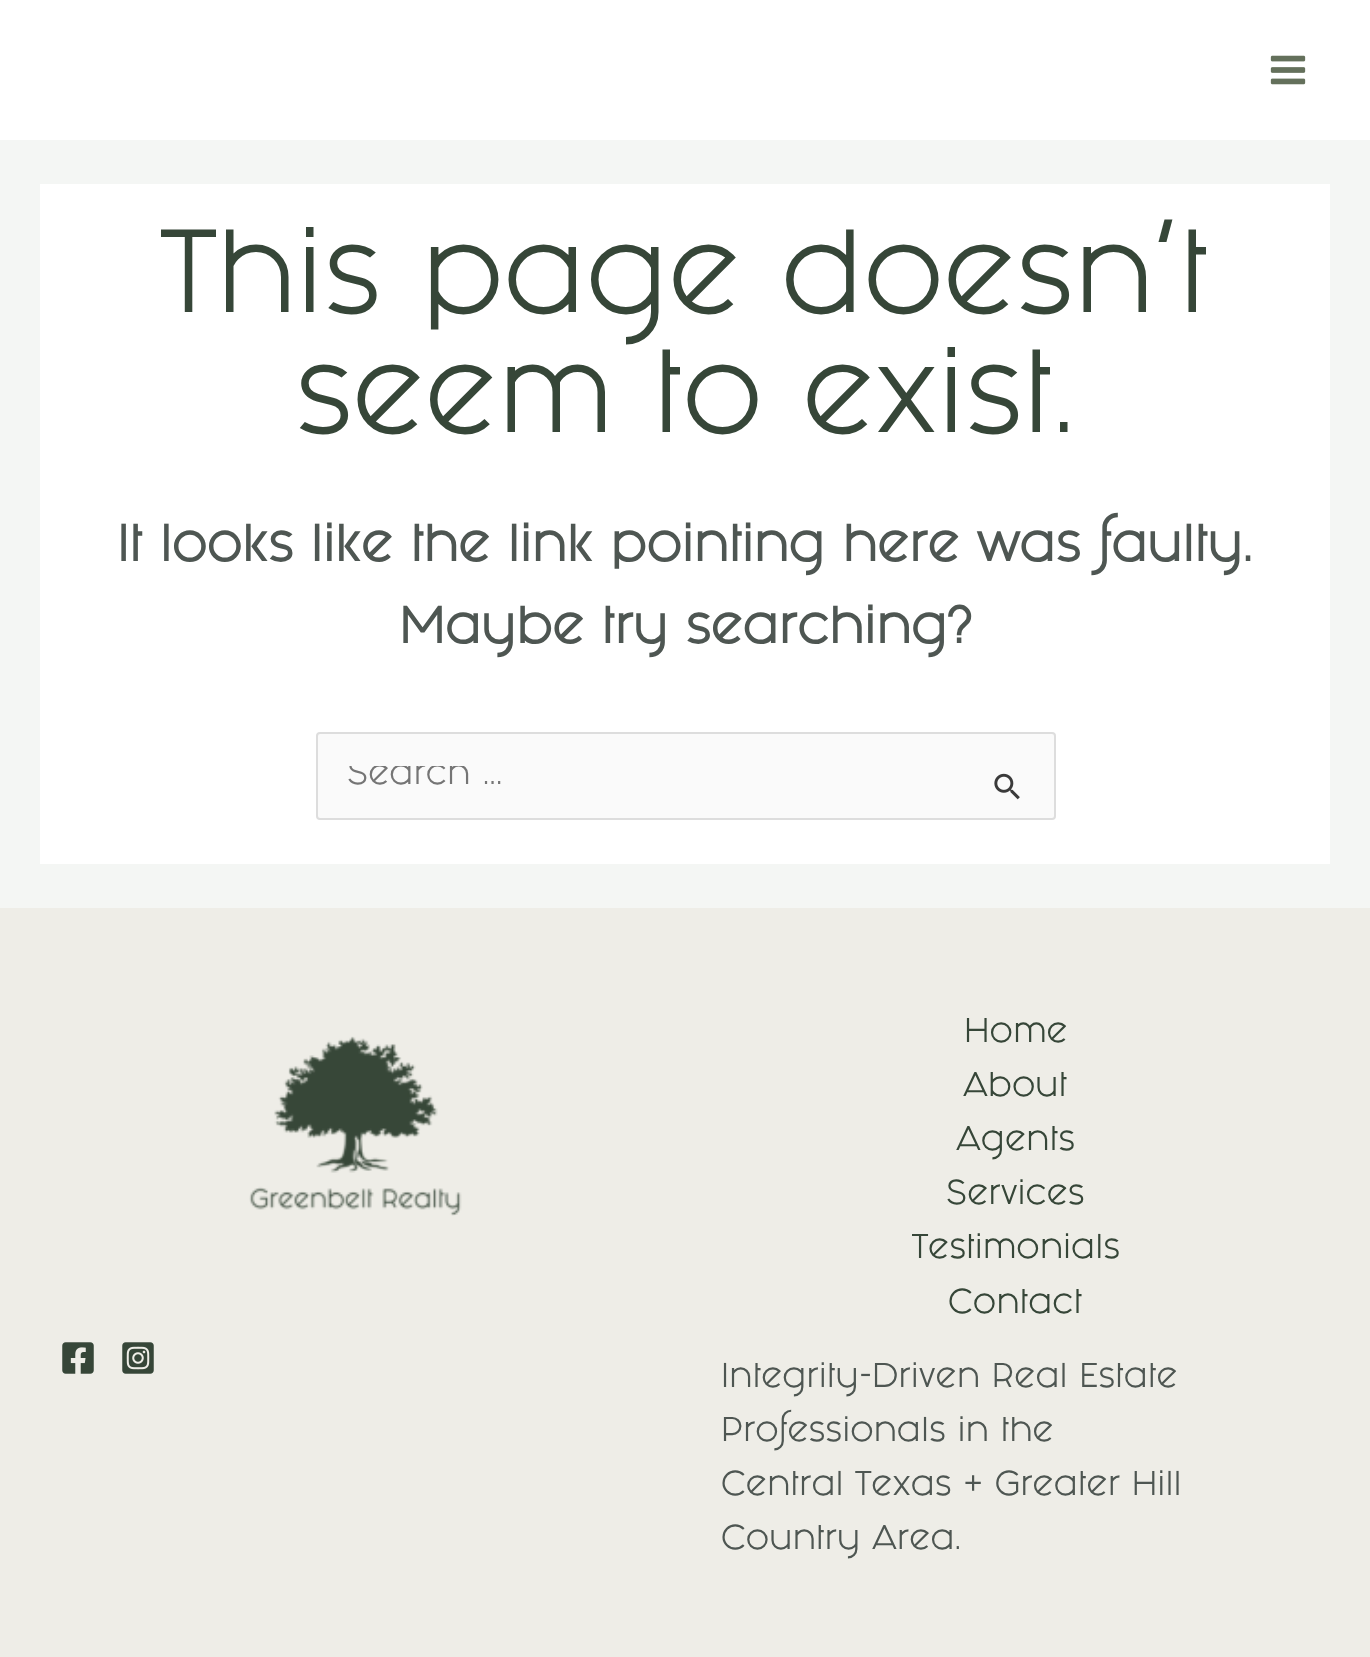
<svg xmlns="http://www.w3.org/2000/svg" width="1370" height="1657">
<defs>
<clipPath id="clip1"><rect x="348" y="766" width="608" height="20"/></clipPath>
</defs>
<rect width="100%" height="100%" fill="#f4f6f4"/>
<rect width="1370" height="140" fill="#fff"/>
<image x="1270" y="55" width="36" height="30" href="media/1.png"/>
<rect x="40" y="184" width="1290" height="680" fill="#fff"/>
<text x="161" y="312" style="font-family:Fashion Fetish;font-size:100px;fill:#364638">This page doesn't</text>
<text x="295" y="432" style="font-family:Fashion Fetish;font-size:100px;fill:#364638">seem to exist.</text>
<text x="117" y="561" style="font-family:Fashion Fetish;font-size:43.75px;font-weight:bold;fill:#4e5652">It looks like the link pointing here was faulty.</text>
<text x="399" y="643" style="font-family:Fashion Fetish;font-size:43.75px;font-weight:bold;fill:#4e5652">Maybe try searching?</text>
<rect x="317" y="733" width="738" height="86" rx="3" fill="#fafafa" stroke="#ddd" stroke-width="2"/>
<g clip-path="url(#clip1)">
<text x="347" y="784" style="font-family:Fashion Fetish;font-size:29.2px;fill:#757575">Search …</text>
</g>
<image x="994" y="773" width="26" height="27" href="media/2.png"/>
<rect y="908" width="1370" height="749" fill="#eeede7"/>
<image x="249" y="1036" width="213" height="180" href="media/3.png"/>
<image x="62" y="1342" width="32" height="32" href="media/4.png"/>
<image x="122" y="1342" width="32" height="32" href="media/5.png"/>
<text x="964" y="1042" style="font-family:Fashion Fetish;font-size:29.2px;fill:#364638">Home</text>
<text x="963" y="1096" style="font-family:Fashion Fetish;font-size:29.2px;fill:#364638">About</text>
<text x="956" y="1150" style="font-family:Fashion Fetish;font-size:29.2px;fill:#364638">Agents</text>
<text x="946" y="1204" style="font-family:Fashion Fetish;font-size:29.2px;fill:#364638">Services</text>
<text x="912" y="1258" style="font-family:Fashion Fetish;font-size:29.2px;fill:#364638">Testimonials</text>
<text x="948" y="1313" style="font-family:Fashion Fetish;font-size:29.2px;fill:#364638">Contact</text>
<text x="721" y="1387" style="font-family:Fashion Fetish;font-size:29.2px;fill:#4e5652">Integrity-Driven Real Estate</text>
<text x="721" y="1441" style="font-family:Fashion Fetish;font-size:29.2px;fill:#4e5652">Professionals in the</text>
<text x="721" y="1495" style="font-family:Fashion Fetish;font-size:29.2px;fill:#4e5652">Central Texas + Greater Hill</text>
<text x="721" y="1549" style="font-family:Fashion Fetish;font-size:29.2px;fill:#4e5652">Country Area.</text>
</svg>
